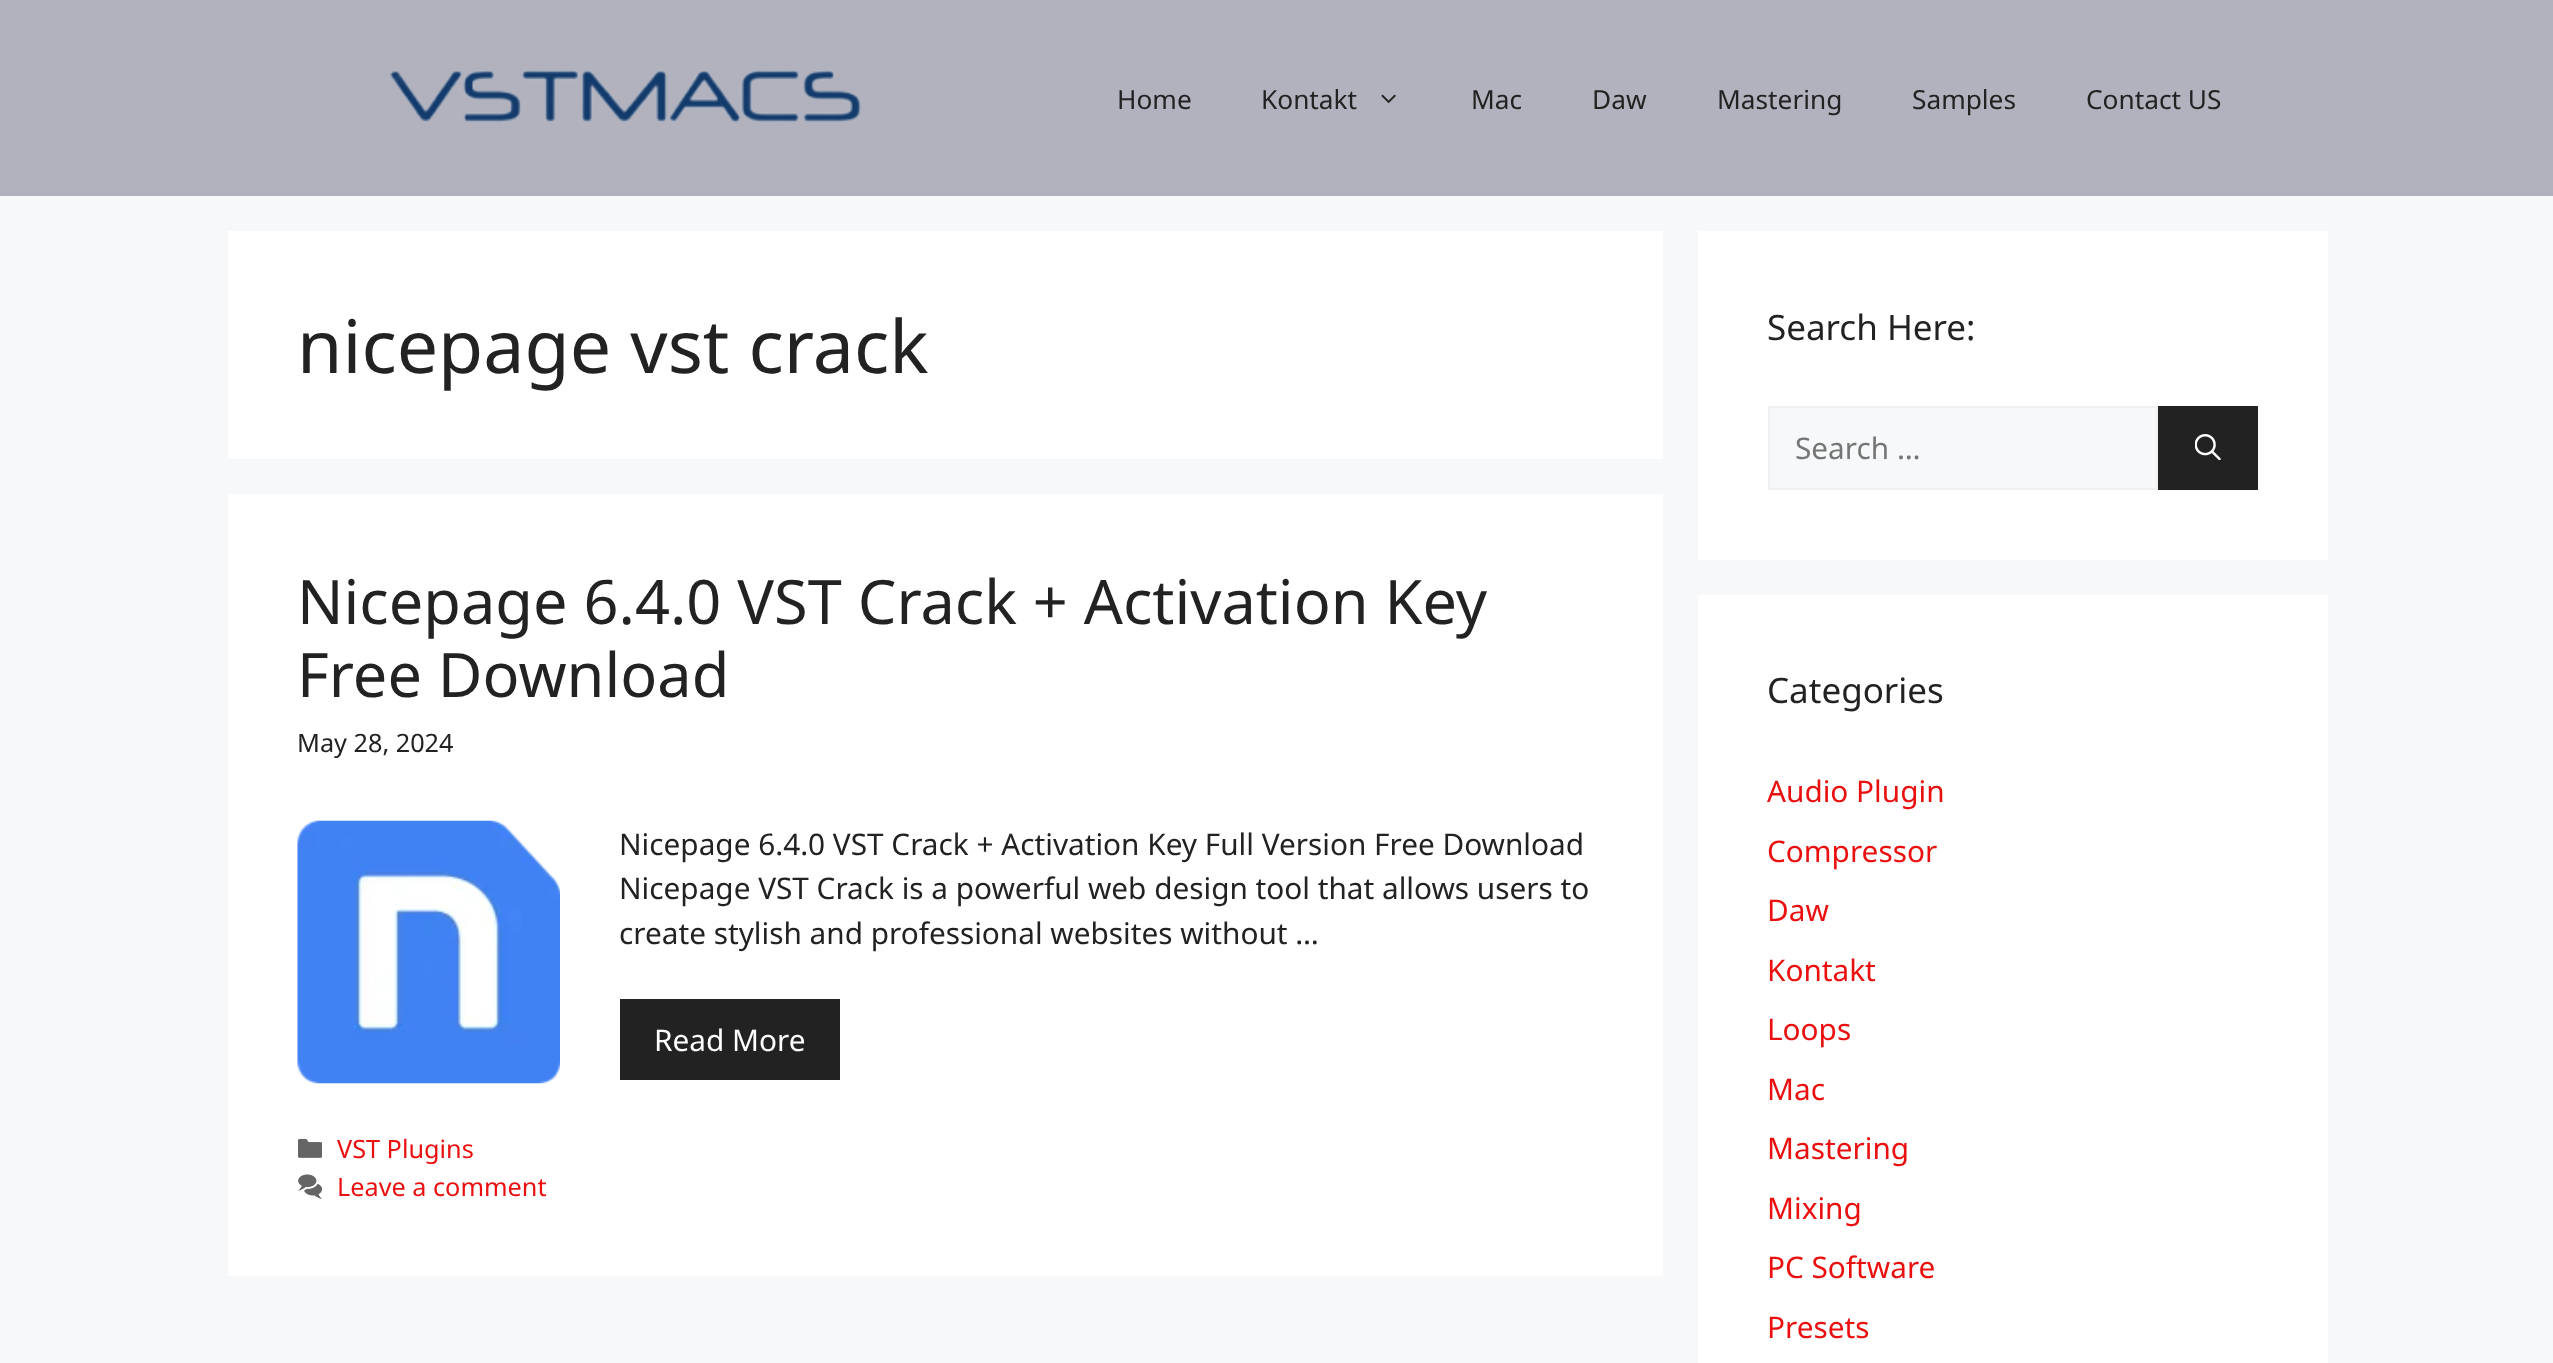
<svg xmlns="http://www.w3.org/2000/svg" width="2553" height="1363">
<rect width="100%" height="100%" fill="#f7f8f9"/>
<rect width="2553" height="196" fill="#b2b2be"/>
<image x="390" y="70" width="472" height="53" href="media/1.png"/>
<text x="1117" y="109" style="font-family:Noto Sans;font-size:26.25px;fill:#222">Home</text>
<text x="1261" y="109" style="font-family:Noto Sans;font-size:26.25px;fill:#222">Kontakt</text>
<image x="1381" y="94" width="15" height="9" href="media/2.png"/>
<text x="1471" y="109" style="font-family:Noto Sans;font-size:26.25px;fill:#222">Mac</text>
<text x="1592" y="109" style="font-family:Noto Sans;font-size:26.25px;fill:#222">Daw</text>
<text x="1717" y="109" style="font-family:Noto Sans;font-size:26.25px;fill:#222">Mastering</text>
<text x="1912" y="109" style="font-family:Noto Sans;font-size:26.25px;fill:#222">Samples</text>
<text x="2086" y="109" style="font-family:Noto Sans;font-size:26.25px;fill:#222">Contact US</text>
<rect x="228" y="231" width="1435" height="228" fill="#fff"/>
<text x="297" y="373" style="font-family:Noto Sans;font-size:73.5px;fill:#222">nicepage vst crack</text>
<rect x="228" y="494" width="1435" height="782" fill="#fff"/>
<text x="297" y="624" style="font-family:Noto Sans;font-size:61.25px;fill:#222">Nicepage 6.4.0 VST Crack + Activation Key</text>
<text x="297" y="697" style="font-family:Noto Sans;font-size:61.25px;fill:#222">Free Download</text>
<text x="297" y="752" style="font-family:Noto Sans;font-size:25.25px;fill:#222">May 28, 2024</text>
<image x="297" y="820" width="263" height="264" href="media/3.png"/>
<text x="619" y="855" style="font-family:Noto Sans;font-size:29.75px;fill:#222">Nicepage 6.4.0 VST Crack + Activation Key Full Version Free Download</text>
<text x="619" y="899" style="font-family:Noto Sans;font-size:29.75px;fill:#222">Nicepage VST Crack is a powerful web design tool that allows users to</text>
<text x="619" y="944" style="font-family:Noto Sans;font-size:29.75px;fill:#222">create stylish and professional websites without …</text>
<rect x="620" y="999" width="220" height="81" fill="#222"/>
<text x="654" y="1051" style="font-family:Noto Sans;font-size:29.75px;fill:#fff">Read More</text>
<image x="298" y="1138" width="24" height="20" href="media/4.png"/>
<text x="337" y="1158" style="font-family:Noto Sans;font-size:25.25px;fill:#ea1010">VST Plugins</text>
<image x="298" y="1174" width="24" height="25" href="media/5.png"/>
<text x="337" y="1196" style="font-family:Noto Sans;font-size:25.25px;fill:#ea1010">Leave a comment</text>
<rect x="1698" y="231" width="630" height="329" fill="#fff"/>
<text x="1767" y="340" style="font-family:Noto Sans;font-size:35px;fill:#222">Search Here:</text>
<rect x="1769" y="407" width="388" height="82" fill="#f7f8f9" stroke="#f0f0f0" stroke-width="2"/>
<text x="1795" y="459" style="font-family:Noto Sans;font-size:29.75px;fill:#757575">Search …</text>
<rect x="2158" y="406" width="100" height="84" fill="#222"/>
<image x="2195" y="434" width="26" height="26" href="media/6.png"/>
<rect x="1698" y="595" width="630" height="768" fill="#fff"/>
<text x="1767" y="703" style="font-family:Noto Sans;font-size:35px;fill:#222">Categories</text>
<text x="1767" y="802" style="font-family:Noto Sans;font-size:29.75px;fill:#ea1010">Audio Plugin</text>
<text x="1767" y="862" style="font-family:Noto Sans;font-size:29.75px;fill:#ea1010">Compressor</text>
<text x="1767" y="921" style="font-family:Noto Sans;font-size:29.75px;fill:#ea1010">Daw</text>
<text x="1767" y="981" style="font-family:Noto Sans;font-size:29.75px;fill:#ea1010">Kontakt</text>
<text x="1767" y="1040" style="font-family:Noto Sans;font-size:29.75px;fill:#ea1010">Loops</text>
<text x="1767" y="1100" style="font-family:Noto Sans;font-size:29.75px;fill:#ea1010">Mac</text>
<text x="1767" y="1159" style="font-family:Noto Sans;font-size:29.75px;fill:#ea1010">Mastering</text>
<text x="1767" y="1219" style="font-family:Noto Sans;font-size:29.75px;fill:#ea1010">Mixing</text>
<text x="1767" y="1278" style="font-family:Noto Sans;font-size:29.75px;fill:#ea1010">PC Software</text>
<text x="1767" y="1338" style="font-family:Noto Sans;font-size:29.75px;fill:#ea1010">Presets</text>
</svg>
